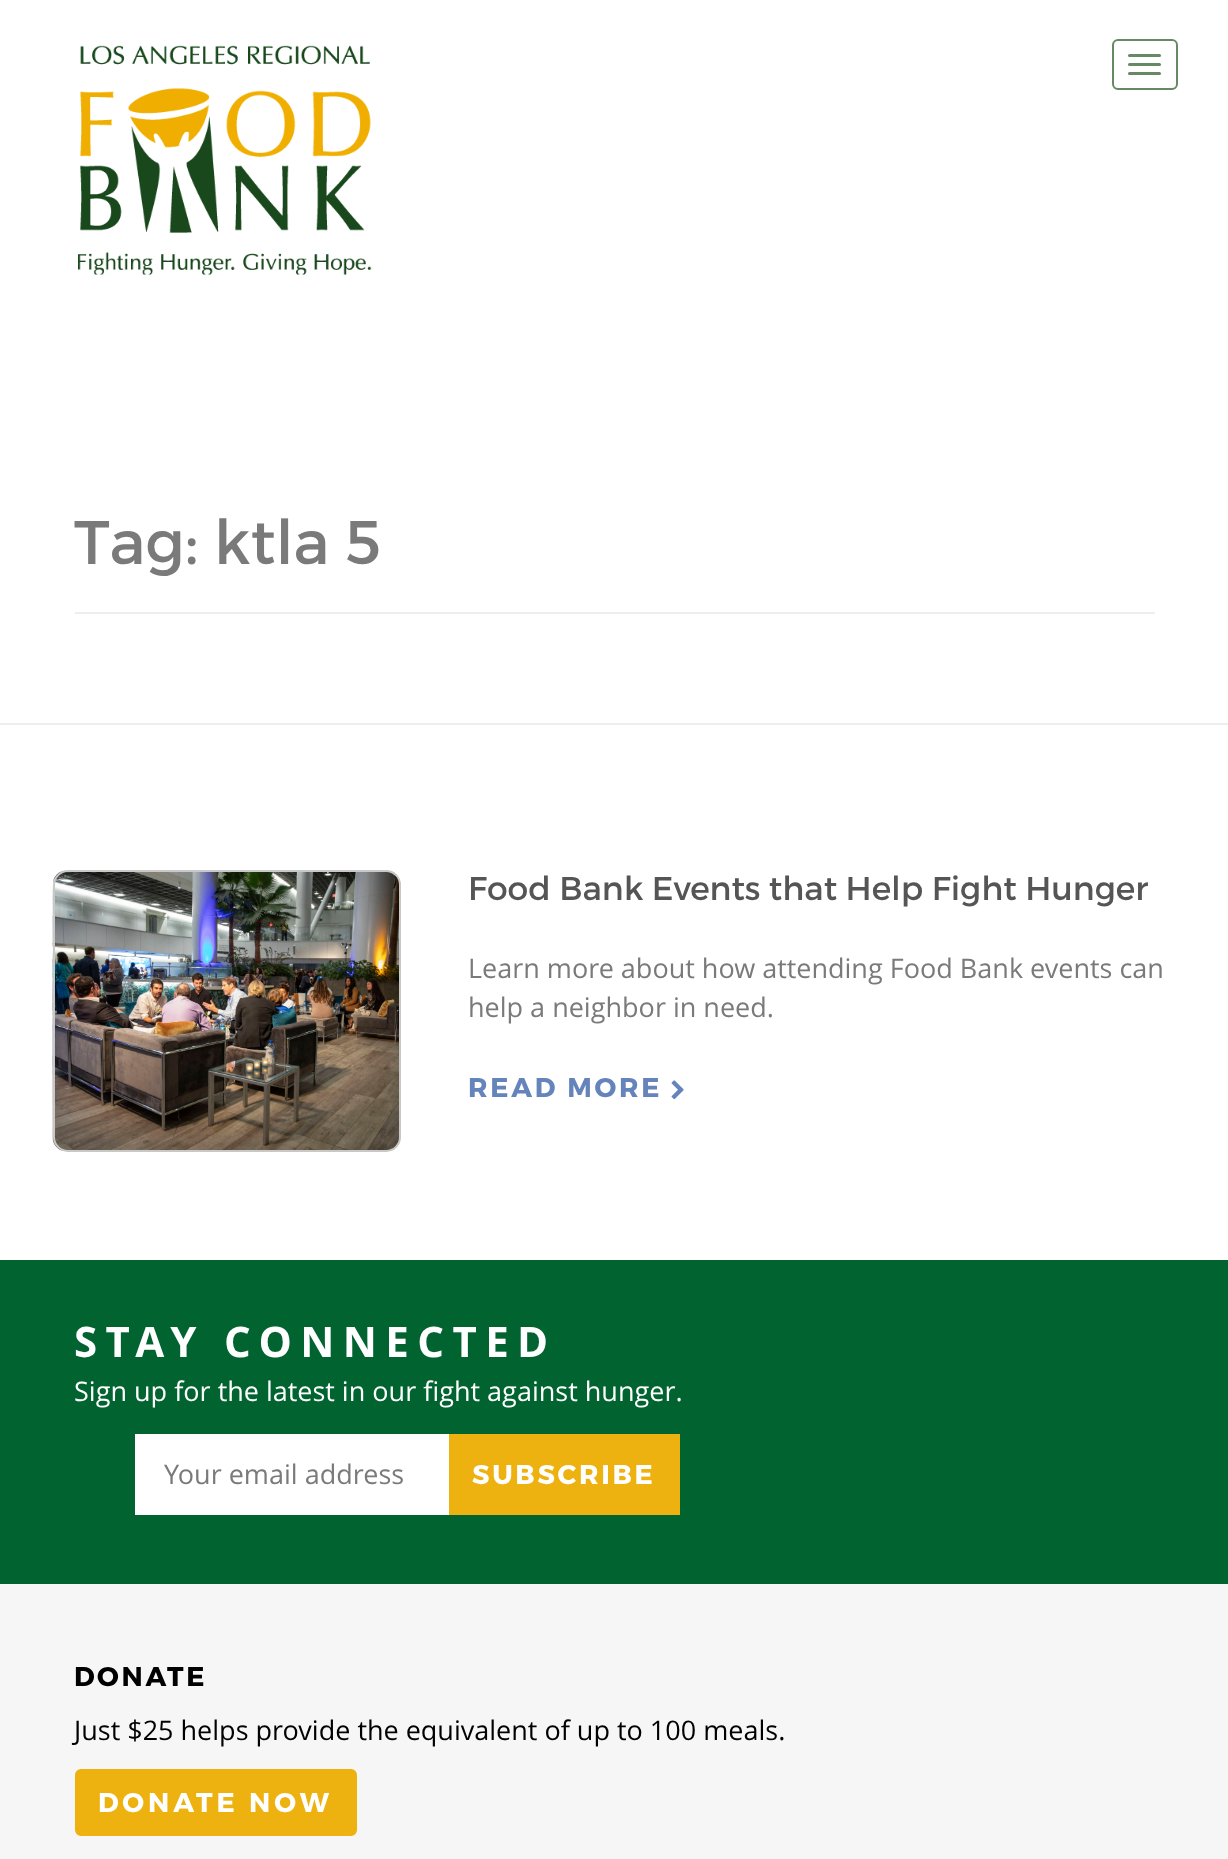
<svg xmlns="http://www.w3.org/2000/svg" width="1228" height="1859">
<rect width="100%" height="100%" fill="#fff"/>
<image x="78" y="45" width="294" height="230" href="media/1.png"/>
<rect x="1113" y="40" width="64" height="49" rx="5" fill="none" stroke="#678963" stroke-width="2"/>
<rect x="1128" y="54" width="33" height="3" rx="1.5" fill="#678963"/>
<rect x="1128" y="63" width="33" height="3" rx="1.5" fill="#678963"/>
<rect x="1128" y="72" width="33" height="3" rx="1.5" fill="#678963"/>
<rect y="723" width="1228" height="2" fill="#eee"/>
<rect x="75" y="612" width="1080" height="2" fill="#eee"/>
<text x="74" y="564" style="font-family:Montserrat;font-size:61.5px;fill:#7a7a7a">Tag: ktla 5</text>
<image x="52" y="871" width="349" height="280" href="media/2.png"/>
<rect x="54" y="871" width="346" height="280" rx="14" fill="none" stroke="#c8c8c8" stroke-width="2"/>
<text x="468" y="900" style="font-family:Montserrat;font-size:33px;fill:#555">Food Bank Events that Help Fight Hunger</text>
<text x="468" y="978" style="font-family:Open Sans;font-size:27px;fill:#7a7a7a">Learn more about how attending Food Bank events can</text>
<text x="468" y="1017" style="font-family:Open Sans;font-size:27px;fill:#7a7a7a">help a neighbor in need.</text>
<text x="468" y="1097" style="font-family:Montserrat;font-size:27px;font-weight:bold;letter-spacing:2.75px;fill:#6584bb">READ MORE</text>
<image x="671" y="1080" width="13" height="20" href="media/3.png"/>
<rect y="1260" width="1228" height="324" fill="#006330"/>
<text x="74" y="1357" style="font-family:Open Sans;font-size:42px;font-weight:bold;letter-spacing:8.4px;fill:#fff">STAY CONNECTED</text>
<text x="74" y="1401" style="font-family:Open Sans;font-size:27px;fill:#fff">Sign up for the latest in our fight against hunger.</text>
<rect x="135" y="1434" width="314" height="81" fill="#fff"/>
<text x="164" y="1484" style="font-family:Open Sans;font-size:27px;fill:#7a7a7a">Your email address</text>
<rect x="449" y="1434" width="231" height="81" fill="#eeb210"/>
<text x="472" y="1484" style="font-family:Montserrat;font-size:27px;font-weight:bold;letter-spacing:2.75px;fill:#fff">SUBSCRIBE</text>
<rect y="1584" width="1228" height="275" fill="#f6f6f6"/>
<text x="74" y="1686" style="font-family:Montserrat;font-size:27px;font-weight:bold;letter-spacing:2.75px;fill:#000">DONATE</text>
<text x="74" y="1740" style="font-family:Open Sans;font-size:27px;fill:#000">Just $25 helps provide the equivalent of up to 100 meals.</text>
<rect x="76" y="1770" width="280" height="65" rx="5" fill="#eeb210" stroke="#eeb210" stroke-width="2"/>
<text x="98" y="1812" style="font-family:Montserrat;font-size:27px;font-weight:bold;letter-spacing:4px;fill:#fff">DONATE NOW</text>
</svg>
